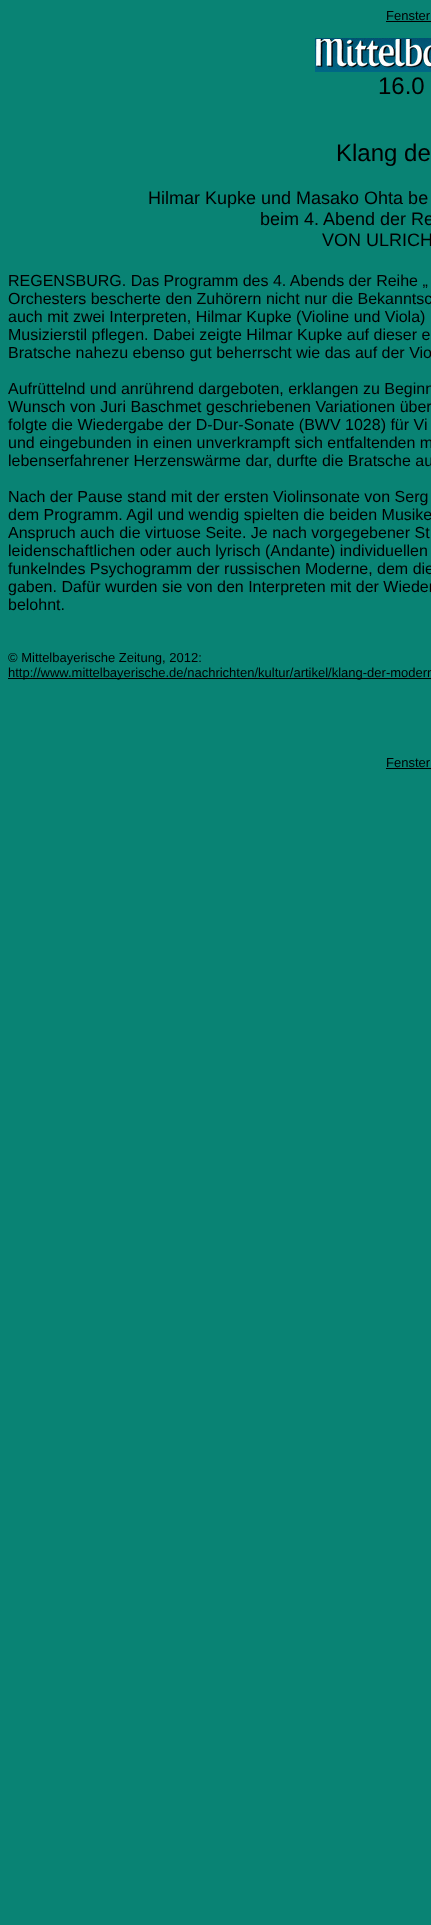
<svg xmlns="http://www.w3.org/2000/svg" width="431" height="1925">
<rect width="100%" height="100%" fill="#098374"/>
<text x="386" y="20" style="font-family:Liberation Sans;font-size:13px;fill:#000">Fenster</text>
<rect x="386" y="21" width="45" height="1" fill="#000"/>
<image x="315" y="38" width="116" height="34" href="media/1.png"/>
<text x="378" y="94" style="font-family:Liberation Sans;font-size:24px;fill:#000">16.0</text>
<text x="336" y="161" style="font-family:Liberation Sans;font-size:24px;fill:#000">Klang de</text>
<text x="148" y="204" style="font-family:Liberation Sans;font-size:18px;fill:#000">Hilmar Kupke und Masako Ohta be</text>
<text x="260" y="225" style="font-family:Liberation Sans;font-size:18px;fill:#000">beim 4. Abend der Re</text>
<text x="322" y="246" style="font-family:Liberation Sans;font-size:18px;fill:#000">VON ULRICH</text>
<text x="8" y="286" style="font-family:Liberation Sans;font-size:16px;fill:#000">REGENSBURG. Das Programm des 4. Abends der Reihe „</text>
<text x="8" y="304" style="font-family:Liberation Sans;font-size:16px;fill:#000">Orchesters bescherte den Zuhörern nicht nur die Bekanntsc</text>
<text x="8" y="322" style="font-family:Liberation Sans;font-size:16px;fill:#000">auch mit zwei Interpreten, Hilmar Kupke (Violine und Viola)</text>
<text x="8" y="340" style="font-family:Liberation Sans;font-size:16px;fill:#000">Musizierstil pflegen. Dabei zeigte Hilmar Kupke auf dieser e</text>
<text x="8" y="358" style="font-family:Liberation Sans;font-size:16px;fill:#000">Bratsche nahezu ebenso gut beherrscht wie das auf der Vio</text>
<text x="8" y="394" style="font-family:Liberation Sans;font-size:16px;fill:#000">Aufrüttelnd und anrührend dargeboten, erklangen zu Beginn</text>
<text x="8" y="412" style="font-family:Liberation Sans;font-size:16px;fill:#000">Wunsch von Juri Baschmet geschriebenen Variationen über</text>
<text x="8" y="430" style="font-family:Liberation Sans;font-size:16px;fill:#000">folgte die Wiedergabe der D-Dur-Sonate (BWV 1028) für Vi</text>
<text x="8" y="448" style="font-family:Liberation Sans;font-size:16px;fill:#000">und eingebunden in einen unverkrampft sich entfaltenden m</text>
<text x="8" y="466" style="font-family:Liberation Sans;font-size:16px;fill:#000">lebenserfahrener Herzenswärme dar, durfte die Bratsche au</text>
<text x="8" y="502" style="font-family:Liberation Sans;font-size:16px;fill:#000">Nach der Pause stand mit der ersten Violinsonate von Serg</text>
<text x="8" y="520" style="font-family:Liberation Sans;font-size:16px;fill:#000">dem Programm. Agil und wendig spielten die beiden Musike</text>
<text x="8" y="538" style="font-family:Liberation Sans;font-size:16px;fill:#000">Anspruch auch die virtuose Seite. Je nach vorgegebener St</text>
<text x="8" y="556" style="font-family:Liberation Sans;font-size:16px;fill:#000">leidenschaftlichen oder auch lyrisch (Andante) individuellen</text>
<text x="8" y="574" style="font-family:Liberation Sans;font-size:16px;fill:#000">funkelndes Psychogramm der russischen Moderne, dem die</text>
<text x="8" y="592" style="font-family:Liberation Sans;font-size:16px;fill:#000">gaben. Dafür wurden sie von den Interpreten mit der Wieder</text>
<text x="8" y="610" style="font-family:Liberation Sans;font-size:16px;fill:#000">belohnt.</text>
<text x="8" y="662" style="font-family:Liberation Sans;font-size:13px;fill:#000">© Mittelbayerische Zeitung, 2012:</text>
<rect x="8" y="678" width="423" height="1" fill="#000"/>
<text x="8" y="677" style="font-family:Liberation Sans;font-size:13px;fill:#000">http://www.mittelbayerische.de/nachrichten/kultur/artikel/klang-der-modern</text>
<text x="386" y="767" style="font-family:Liberation Sans;font-size:13px;fill:#000">Fenster</text>
<rect x="386" y="768" width="45" height="1" fill="#000"/>
</svg>
